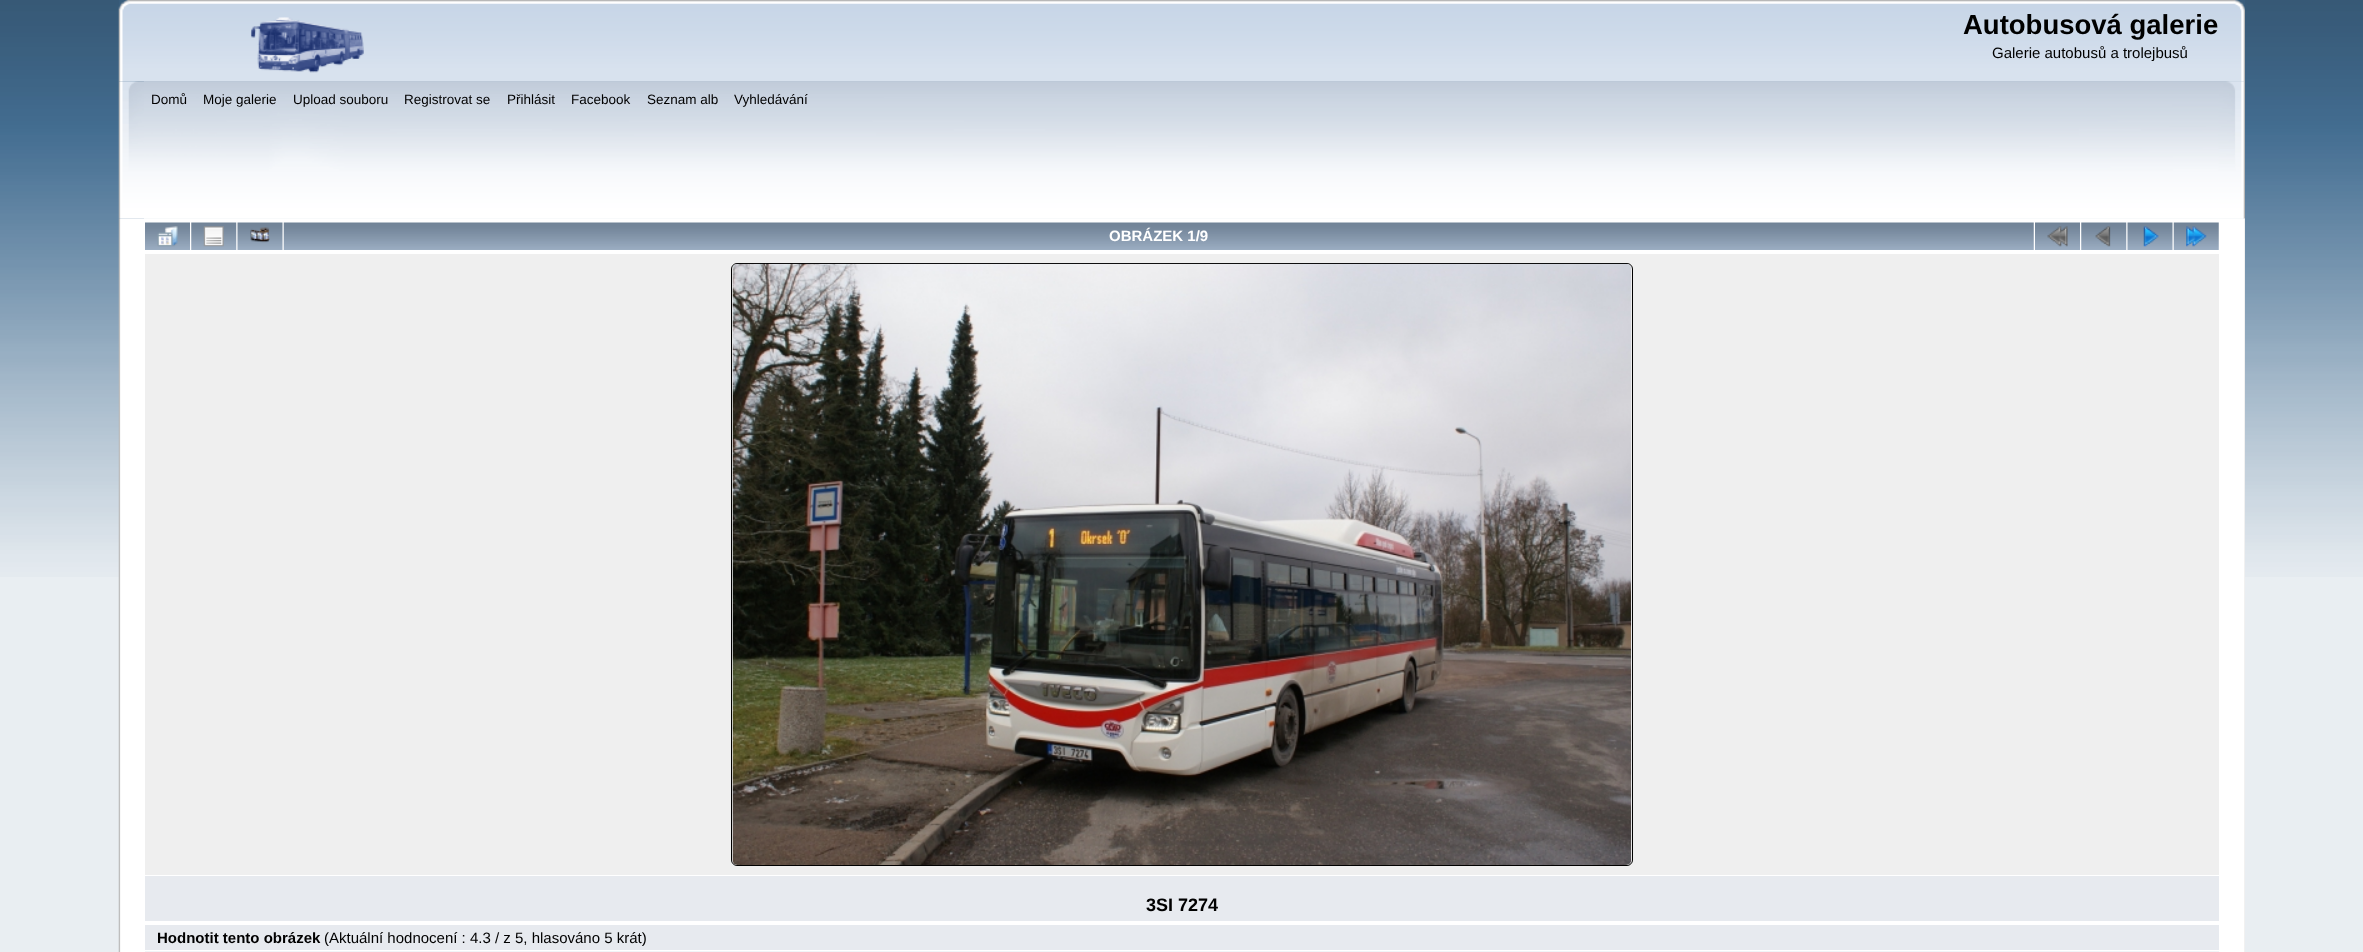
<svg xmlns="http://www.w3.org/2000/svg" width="2363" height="952">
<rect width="100%" height="100%" fill="#e9eef2"/>
<image x="0" y="0" width="2363" height="577" href="media/1.png"/>
<image x="118" y="0" width="2127" height="82" href="media/2.png"/>
<image x="143" y="0" width="2102" height="82" href="media/3.png"/>
<image x="250" y="17" width="114" height="56" href="media/4.png"/>
<text x="1963" y="34" style="font-family:Liberation Sans;font-size:27.5px;font-weight:bold;fill:#000">Autobusová galerie</text>
<text x="1992" y="58" style="font-family:Liberation Sans;font-size:15px;fill:#000">Galerie autobusů a trolejbusů</text>
<image x="118" y="81" width="2127" height="138" href="media/5.png"/>
<image x="144" y="81" width="2101" height="138" href="media/6.png"/>
<text x="151" y="104" style="font-family:Liberation Sans;font-size:13.5px;fill:#000">Domů</text>
<text x="203" y="104" style="font-family:Liberation Sans;font-size:13.5px;fill:#000">Moje galerie</text>
<text x="293" y="104" style="font-family:Liberation Sans;font-size:13.5px;fill:#000">Upload souboru</text>
<text x="404" y="104" style="font-family:Liberation Sans;font-size:13.5px;fill:#000">Registrovat se</text>
<text x="507" y="104" style="font-family:Liberation Sans;font-size:13.5px;fill:#000">Přihlásit</text>
<text x="571" y="104" style="font-family:Liberation Sans;font-size:13.5px;fill:#000">Facebook</text>
<text x="647" y="104" style="font-family:Liberation Sans;font-size:13.5px;fill:#000">Seznam alb</text>
<text x="734" y="104" style="font-family:Liberation Sans;font-size:13.5px;fill:#000">Vyhledávání</text>
<image x="118" y="218" width="2127" height="734" href="media/7.png"/>
<image x="2244" y="218" width="1" height="734" href="media/8.png"/>
<image x="145" y="222" width="45" height="28" href="media/9.png"/>
<image x="157" y="226" width="21" height="21" href="media/10.png"/>
<image x="191" y="222" width="46" height="28" href="media/11.png"/>
<image x="203" y="226" width="21" height="21" href="media/12.png"/>
<image x="237" y="222" width="46" height="28" href="media/13.png"/>
<image x="250" y="227" width="20" height="16" href="media/14.png"/>
<image x="283" y="222" width="1751" height="28" href="media/15.png"/>
<text x="1109" y="241" style="font-family:Liberation Sans;font-size:15px;font-weight:bold;fill:#fff">OBRÁZEK 1/9</text>
<image x="2035" y="222" width="45" height="28" href="media/9.png"/>
<image x="2047" y="226" width="21" height="21" href="media/16.png"/>
<image x="2081" y="222" width="46" height="28" href="media/11.png"/>
<image x="2095" y="226" width="16" height="21" href="media/17.png"/>
<image x="2127" y="222" width="46" height="28" href="media/13.png"/>
<image x="2143" y="226" width="16" height="21" href="media/18.png"/>
<image x="2173" y="222" width="46" height="28" href="media/19.png"/>
<image x="2186" y="226" width="21" height="21" href="media/20.png"/>
<rect x="145" y="254" width="2074" height="621" fill="#efefef"/>
<rect x="731.5" y="263.5" width="901" height="602" rx="5.5" fill="none" stroke="#000"/>
<image x="732" y="263" width="900" height="602" href="media/21.png"/>
<rect x="145" y="876" width="2074" height="45" fill="#e7eaef"/>
<text x="1146" y="911" style="font-family:Liberation Sans;font-size:18px;font-weight:bold;fill:#000">3SI 7274</text>
<rect x="145" y="925" width="2074" height="25" fill="#e7eaef"/>
<text x="157" y="943" style="font-family:Liberation Sans;font-size:15px;font-weight:bold;fill:#000">Hodnotit tento obrázek</text>
<text x="324" y="943" style="font-family:Liberation Sans;font-size:15px;fill:#000">(Aktuální hodnocení : 4.3 / z 5, hlasováno 5 krát)</text>
<rect x="145" y="951" width="2074" height="1" fill="#f0f4f7"/>
</svg>
